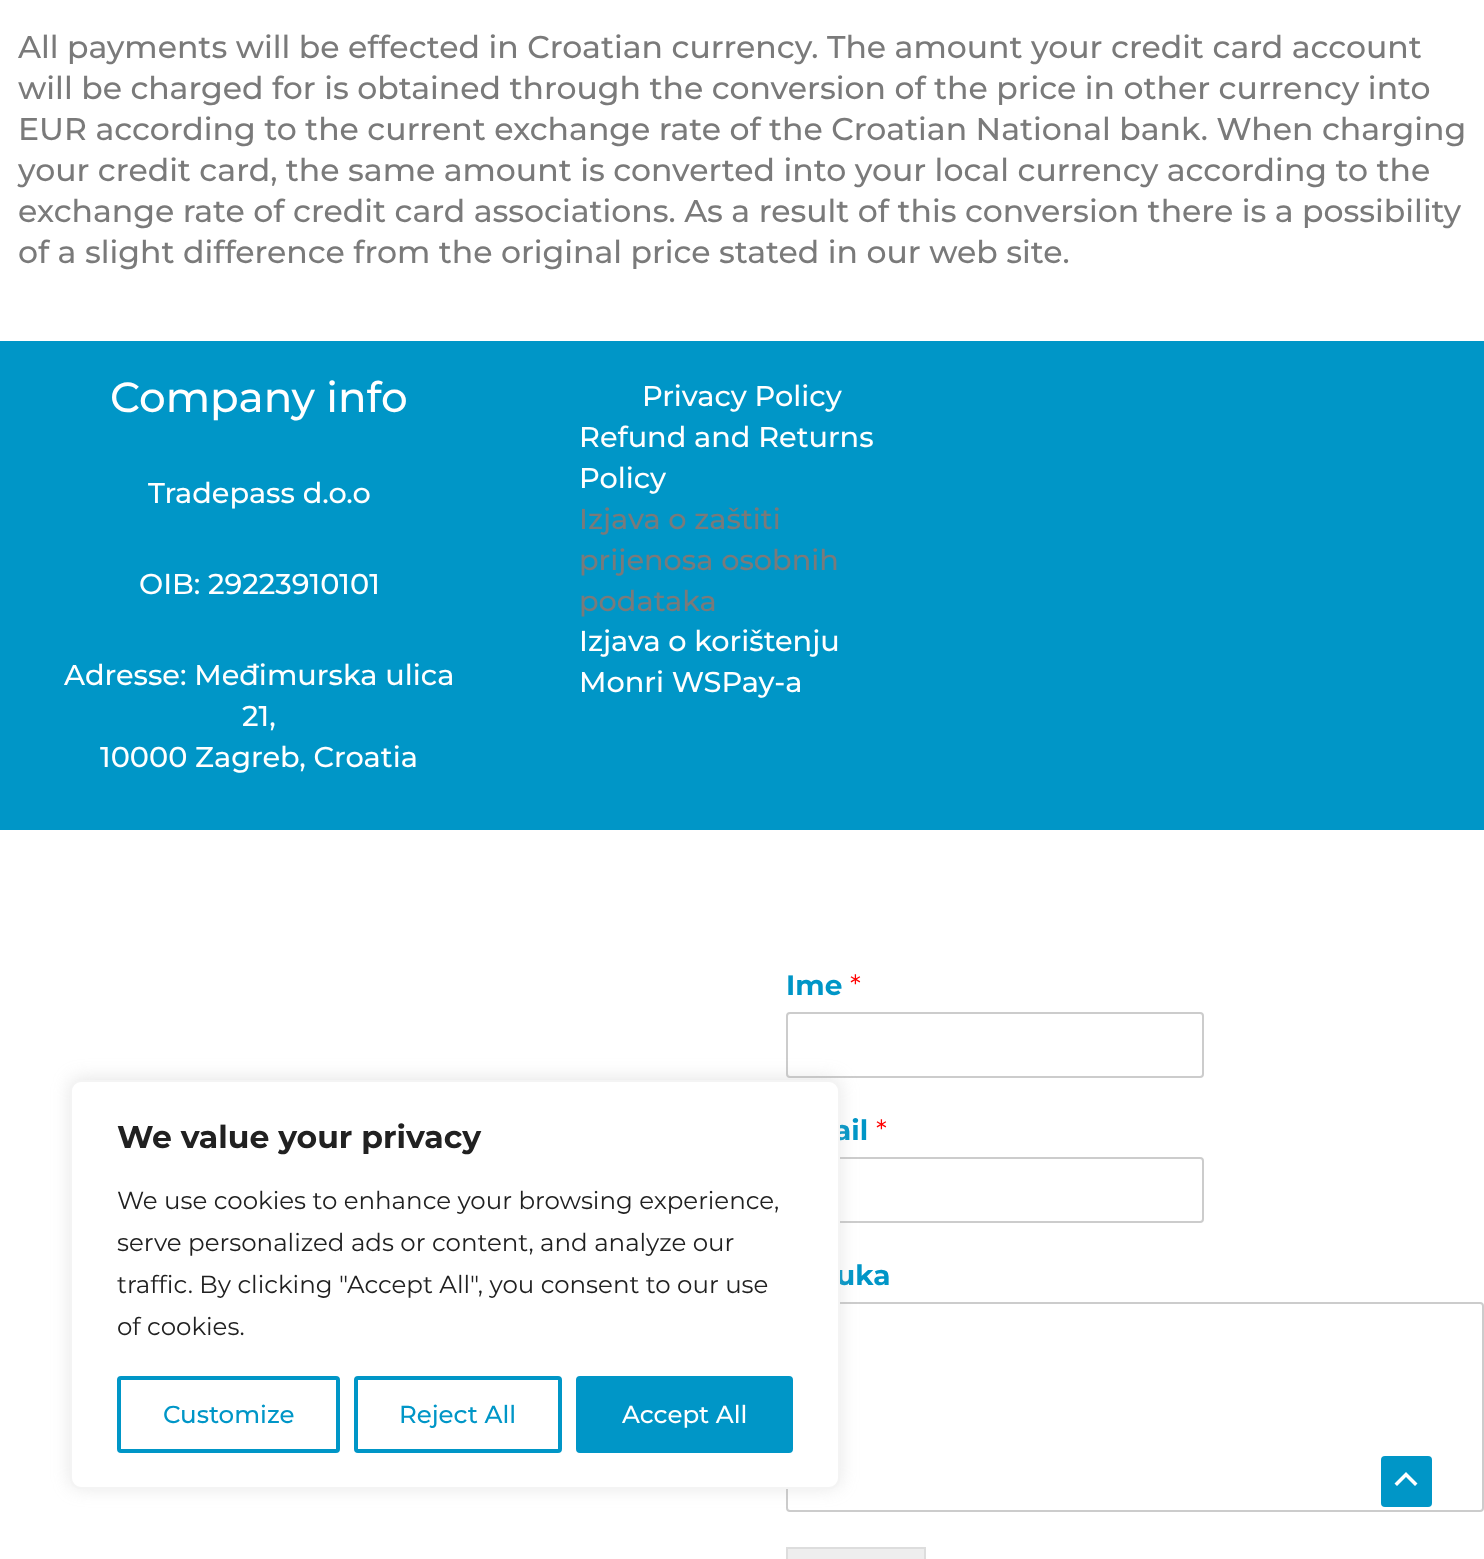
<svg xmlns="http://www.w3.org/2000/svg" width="1484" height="1559">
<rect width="100%" height="100%" fill="#fff"/>
<text x="18" y="58" style="font-family:Montserrat;font-size:31.5px;font-weight:500;fill:#7a7a7a">All payments will be effected in Croatian currency. The amount your credit card account</text>
<text x="18" y="99" style="font-family:Montserrat;font-size:31.5px;font-weight:500;fill:#7a7a7a">will be charged for is obtained through the conversion of the price in other currency into</text>
<text x="18" y="140" style="font-family:Montserrat;font-size:31.5px;font-weight:500;fill:#7a7a7a">EUR according to the current exchange rate of the Croatian National bank. When charging</text>
<text x="18" y="181" style="font-family:Montserrat;font-size:31.5px;font-weight:500;fill:#7a7a7a">your credit card, the same amount is converted into your local currency according to the</text>
<text x="18" y="222" style="font-family:Montserrat;font-size:31.5px;font-weight:500;fill:#7a7a7a">exchange rate of credit card associations. As a result of this conversion there is a possibility</text>
<text x="18" y="263" style="font-family:Montserrat;font-size:31.5px;font-weight:500;fill:#7a7a7a">of a slight difference from the original price stated in our web site.</text>
<rect y="341" width="1484" height="489" fill="#0096c7"/>
<text x="110" y="412" style="font-family:Montserrat;font-size:42px;font-weight:500;fill:#fff">Company info</text>
<text x="148" y="503" style="font-family:Montserrat;font-size:28.75px;font-weight:500;fill:#fff">Tradepass d.o.o</text>
<text x="139" y="594" style="font-family:Montserrat;font-size:28.75px;font-weight:500;fill:#fff">OIB: 29223910101</text>
<text x="64" y="685" style="font-family:Montserrat;font-size:28.75px;font-weight:500;fill:#fff">Adresse: Međimurska ulica</text>
<text x="242" y="726" style="font-family:Montserrat;font-size:28.75px;font-weight:500;fill:#fff">21,</text>
<text x="100" y="767" style="font-family:Montserrat;font-size:28.75px;font-weight:500;fill:#fff">10000 Zagreb, Croatia</text>
<text x="642" y="406" style="font-family:Montserrat;font-size:28.75px;font-weight:500;fill:#fff">Privacy Policy</text>
<text x="579" y="447" style="font-family:Montserrat;font-size:28.75px;font-weight:500;fill:#fff">Refund and Returns</text>
<text x="579" y="488" style="font-family:Montserrat;font-size:28.75px;font-weight:500;fill:#fff">Policy</text>
<text x="579" y="529" style="font-family:Montserrat;font-size:28.75px;font-weight:500;fill:#7a7a7a">Izjava o zaštiti</text>
<text x="579" y="570" style="font-family:Montserrat;font-size:28.75px;font-weight:500;fill:#7a7a7a">prijenosa osobnih</text>
<text x="579" y="611" style="font-family:Montserrat;font-size:28.75px;font-weight:500;fill:#7a7a7a">podataka</text>
<text x="579" y="651" style="font-family:Montserrat;font-size:28.75px;font-weight:500;fill:#fff">Izjava o korištenju</text>
<text x="579" y="692" style="font-family:Montserrat;font-size:28.75px;font-weight:500;fill:#fff">Monri WSPay-a</text>
<text x="786" y="995" style="font-family:Montserrat;font-size:28px;font-weight:bold;fill:#0096c7">Ime</text>
<text x="850" y="995" style="font-family:Montserrat;font-size:28px;fill:#f00">*</text>
<rect x="787" y="1013" width="416" height="64" rx="3" fill="none" stroke="#ccc" stroke-width="2"/>
<text x="834" y="1140" style="font-family:Montserrat;font-size:28px;font-weight:bold;fill:#0096c7">ail</text>
<text x="876" y="1140" style="font-family:Montserrat;font-size:28px;fill:#f00">*</text>
<rect x="787" y="1158" width="416" height="64" rx="3" fill="none" stroke="#ccc" stroke-width="2"/>
<text x="836" y="1285" style="font-family:Montserrat;font-size:28px;font-weight:bold;fill:#0096c7">uka</text>
<rect x="787" y="1303" width="696" height="208" rx="3" fill="none" stroke="#ccc" stroke-width="2"/>
<rect x="787" y="1548" width="138" height="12" fill="#eee" stroke="#ddd" stroke-width="2"/>
<rect x="70" y="1078" width="770" height="410" rx="11" fill="#acabab4d" filter="blur(9px)"/>
<rect x="71" y="1081" width="768" height="407" rx="10" fill="#fff" stroke="#f4f4f4" stroke-width="2"/>
<text x="117" y="1148" style="font-family:Montserrat;font-size:31.5px;font-weight:bold;fill:#212121">We value your privacy</text>
<text x="117" y="1209" style="font-family:Montserrat;font-size:24.5px;fill:#212121">We use cookies to enhance your browsing experience,</text>
<text x="117" y="1251" style="font-family:Montserrat;font-size:24.5px;fill:#212121">serve personalized ads or content, and analyze our</text>
<text x="117" y="1293" style="font-family:Montserrat;font-size:24.5px;fill:#212121">traffic. By clicking "Accept All", you consent to our use</text>
<text x="117" y="1335" style="font-family:Montserrat;font-size:24.5px;fill:#212121">of cookies.</text>
<rect x="119" y="1378" width="219" height="73" rx="2" fill="none" stroke="#0096c7" stroke-width="4"/>
<text x="163" y="1423" style="font-family:Montserrat;font-size:24.5px;font-weight:500;fill:#0096c7">Customize</text>
<rect x="356" y="1378" width="204" height="73" rx="2" fill="none" stroke="#0096c7" stroke-width="4"/>
<text x="399" y="1423" style="font-family:Montserrat;font-size:24.5px;font-weight:500;fill:#0096c7">Reject All</text>
<rect x="578" y="1378" width="213" height="73" rx="2" fill="#0096c7" stroke="#0096c7" stroke-width="4"/>
<text x="622" y="1423" style="font-family:Montserrat;font-size:24.5px;font-weight:500;fill:#fff">Accept All</text>
<rect x="1381" y="1456" width="51" height="51" rx="4" fill="#0096c7"/>
<path d="M1417.5 1483.5l-11.5-11.5l-11.5 11.5l2.5 2.5l9-9l9 9z" fill="#fff"/>
</svg>
